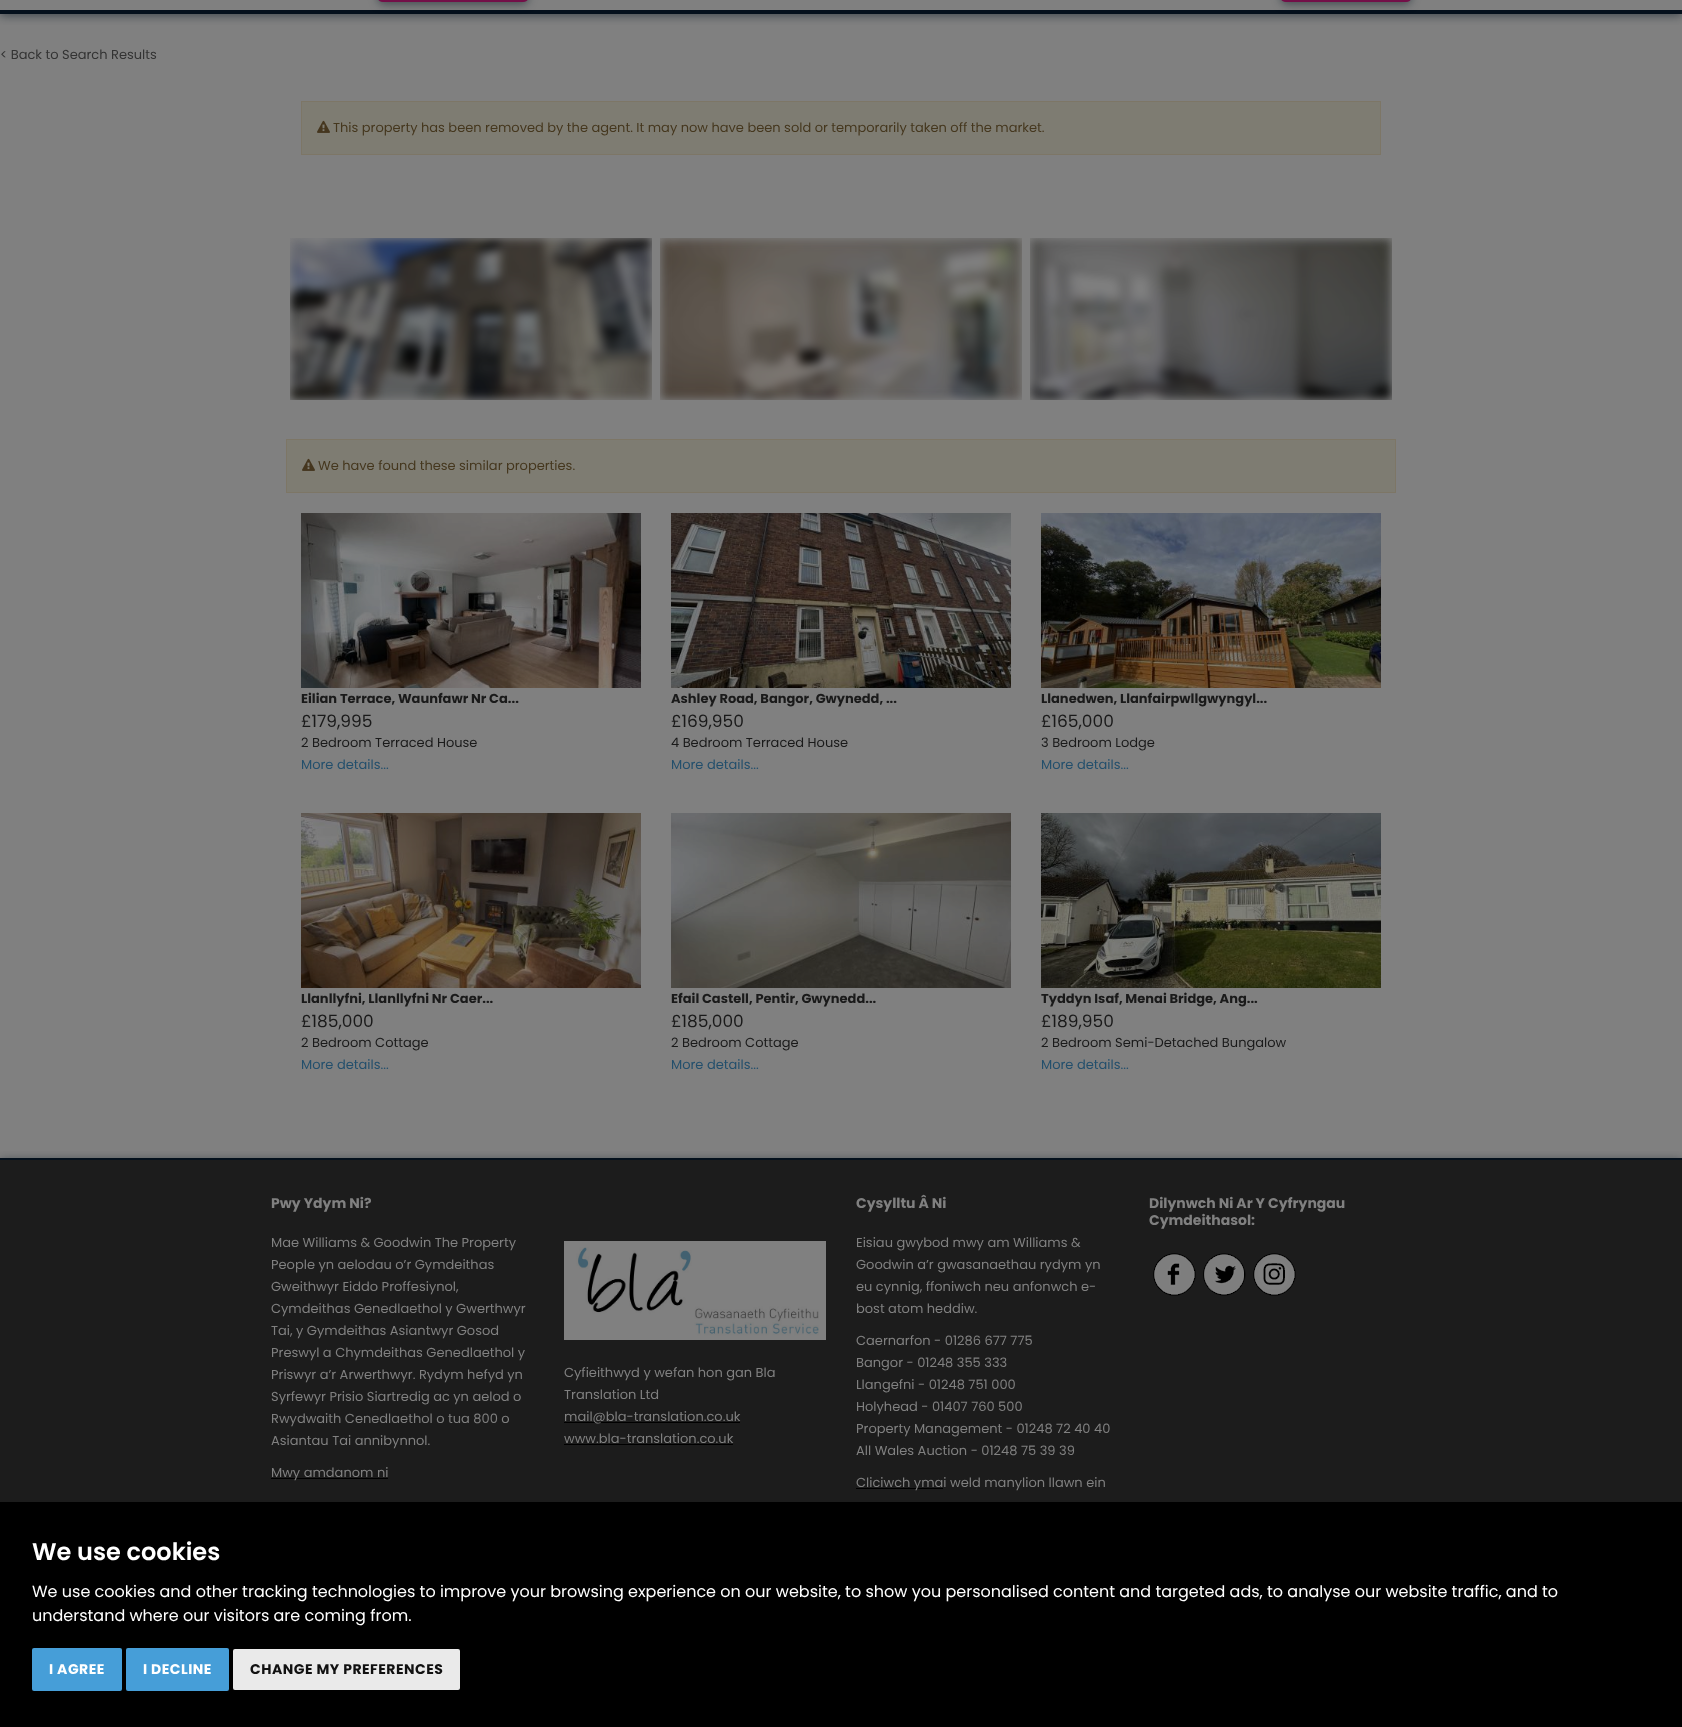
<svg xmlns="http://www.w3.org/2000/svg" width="1682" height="1727">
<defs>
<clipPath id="clip1"><rect x="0" y="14" width="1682" height="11"/></clipPath>
<clipPath id="clip2"><rect x="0" y="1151" width="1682" height="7"/></clipPath>
</defs>
<rect width="100%" height="100%" fill="#808080"/>
<g clip-path="url(#clip1)">
<rect y="-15" width="1682" height="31" fill="#02111d80" filter="blur(5px)"/>
</g>
<rect y="10" width="1682" height="4" fill="#04101c"/>
<rect x="378" y="-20" width="150" height="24" rx="5" fill="#02111d80" filter="blur(5px)"/>
<rect x="378" y="-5" width="150" height="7" rx="5" fill="#730f48"/>
<rect x="1281" y="-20" width="130" height="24" rx="5" fill="#02111d80" filter="blur(5px)"/>
<rect x="1281" y="-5" width="130" height="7" rx="5" fill="#730f48"/>
<text x="0" y="59" style="font-family:Poppins;font-size:13px;fill:#333">&lt; Back to Search Results</text>
<rect x="301.5" y="101.5" width="1079" height="53" fill="#7e7c72" stroke="#7d7666"/>
<image x="317" y="120" width="13" height="13" href="media/1.png"/>
<text x="333" y="132" style="font-family:Poppins;font-size:13px;fill:#45371e">This property has been removed by the agent. It may now have been sold or temporarily taken off the market.</text>
<image x="290" y="238" width="362" height="162" href="media/2.png"/>
<image x="660" y="238" width="362" height="162" href="media/3.png"/>
<image x="1030" y="238" width="362" height="162" href="media/4.png"/>
<rect x="286.5" y="439.5" width="1109" height="53" fill="#7e7c72" stroke="#7d7666"/>
<image x="302" y="458" width="13" height="13" href="media/1.png"/>
<text x="318" y="470" style="font-family:Poppins;font-size:13px;fill:#45371e">We have found these similar properties.</text>
<image x="301" y="513" width="340" height="175" href="media/5.png"/>
<text x="301" y="703" style="font-family:Poppins;font-size:13px;font-weight:bold;fill:#1a1a1a">Eilian Terrace, Waunfawr Nr Ca...</text>
<text x="301" y="727" style="font-family:Poppins;font-size:17px;fill:#1a1a1a">£179,995</text>
<text x="301" y="747" style="font-family:Poppins;font-size:13px;fill:#1a1a1a">2 Bedroom Terraced House</text>
<text x="301" y="769" style="font-family:Poppins;font-size:13px;fill:#234f6c">More details...</text>
<image x="671" y="513" width="340" height="175" href="media/6.png"/>
<text x="671" y="703" style="font-family:Poppins;font-size:13px;font-weight:bold;fill:#1a1a1a">Ashley Road, Bangor, Gwynedd, ...</text>
<text x="671" y="727" style="font-family:Poppins;font-size:17px;fill:#1a1a1a">£169,950</text>
<text x="671" y="747" style="font-family:Poppins;font-size:13px;fill:#1a1a1a">4 Bedroom Terraced House</text>
<text x="671" y="769" style="font-family:Poppins;font-size:13px;fill:#234f6c">More details...</text>
<image x="1041" y="513" width="340" height="175" href="media/7.png"/>
<text x="1041" y="703" style="font-family:Poppins;font-size:13px;font-weight:bold;fill:#1a1a1a">Llanedwen, Llanfairpwllgwyngyl...</text>
<text x="1041" y="727" style="font-family:Poppins;font-size:17px;fill:#1a1a1a">£165,000</text>
<text x="1041" y="747" style="font-family:Poppins;font-size:13px;fill:#1a1a1a">3 Bedroom Lodge</text>
<text x="1041" y="769" style="font-family:Poppins;font-size:13px;fill:#234f6c">More details...</text>
<image x="301" y="813" width="340" height="175" href="media/8.png"/>
<text x="301" y="1003" style="font-family:Poppins;font-size:13px;font-weight:bold;fill:#1a1a1a">Llanllyfni, Llanllyfni Nr Caer...</text>
<text x="301" y="1027" style="font-family:Poppins;font-size:17px;fill:#1a1a1a">£185,000</text>
<text x="301" y="1047" style="font-family:Poppins;font-size:13px;fill:#1a1a1a">2 Bedroom Cottage</text>
<text x="301" y="1069" style="font-family:Poppins;font-size:13px;fill:#234f6c">More details...</text>
<image x="671" y="813" width="340" height="175" href="media/9.png"/>
<text x="671" y="1003" style="font-family:Poppins;font-size:13px;font-weight:bold;fill:#1a1a1a">Efail Castell, Pentir, Gwynedd...</text>
<text x="671" y="1027" style="font-family:Poppins;font-size:17px;fill:#1a1a1a">£185,000</text>
<text x="671" y="1047" style="font-family:Poppins;font-size:13px;fill:#1a1a1a">2 Bedroom Cottage</text>
<text x="671" y="1069" style="font-family:Poppins;font-size:13px;fill:#234f6c">More details...</text>
<image x="1041" y="813" width="340" height="175" href="media/10.png"/>
<text x="1041" y="1003" style="font-family:Poppins;font-size:13px;font-weight:bold;fill:#1a1a1a">Tyddyn Isaf, Menai Bridge, Ang...</text>
<text x="1041" y="1027" style="font-family:Poppins;font-size:17px;fill:#1a1a1a">£189,950</text>
<text x="1041" y="1047" style="font-family:Poppins;font-size:13px;fill:#1a1a1a">2 Bedroom Semi-Detached Bungalow</text>
<text x="1041" y="1069" style="font-family:Poppins;font-size:13px;fill:#234f6c">More details...</text>
<rect y="1160" width="1682" height="342" fill="#1c1c1c"/>
<g clip-path="url(#clip2)">
<rect y="1160" width="1682" height="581" fill="#02111d80" filter="blur(5px)"/>
</g>
<rect y="1158" width="1682" height="2" fill="#04101c"/>
<text x="271" y="1208" style="font-family:Poppins;font-size:14px;font-weight:bold;fill:#808080">Pwy Ydym Ni?</text>
<text x="271" y="1247" style="font-family:Poppins;font-size:13px;fill:#808080">Mae Williams &amp; Goodwin The Property</text>
<text x="271" y="1269" style="font-family:Poppins;font-size:13px;fill:#808080">People yn aelodau o’r Gymdeithas</text>
<text x="271" y="1291" style="font-family:Poppins;font-size:13px;fill:#808080">Gweithwyr Eiddo Proffesiynol,</text>
<text x="271" y="1313" style="font-family:Poppins;font-size:13px;fill:#808080">Cymdeithas Genedlaethol y Gwerthwyr</text>
<text x="271" y="1335" style="font-family:Poppins;font-size:13px;fill:#808080">Tai, y Gymdeithas Asiantwyr Gosod</text>
<text x="271" y="1357" style="font-family:Poppins;font-size:13px;fill:#808080">Preswyl a Chymdeithas Genedlaethol y</text>
<text x="271" y="1379" style="font-family:Poppins;font-size:13px;fill:#808080">Priswyr a’r Arwerthwyr. Rydym hefyd yn</text>
<text x="271" y="1401" style="font-family:Poppins;font-size:13px;fill:#808080">Syrfewyr Prisio Siartredig ac yn aelod o</text>
<text x="271" y="1423" style="font-family:Poppins;font-size:13px;fill:#808080">Rwydwaith Cenedlaethol o tua 800 o</text>
<text x="271" y="1445" style="font-family:Poppins;font-size:13px;fill:#808080">Asiantau Tai annibynnol.</text>
<rect x="271" y="1478" width="117" height="1" fill="#000"/>
<text x="271" y="1477" style="font-family:Poppins;font-size:13px;fill:#808080">Mwy amdanom ni</text>
<text x="856" y="1208" style="font-family:Poppins;font-size:14px;font-weight:bold;fill:#808080">Cysylltu Â Ni</text>
<text x="856" y="1247" style="font-family:Poppins;font-size:13px;fill:#808080">Eisiau gwybod mwy am Williams &amp;</text>
<text x="856" y="1269" style="font-family:Poppins;font-size:13px;fill:#808080">Goodwin a’r gwasanaethau rydym yn</text>
<text x="856" y="1291" style="font-family:Poppins;font-size:13px;fill:#808080">eu cynnig, ffoniwch neu anfonwch e-</text>
<text x="856" y="1313" style="font-family:Poppins;font-size:13px;fill:#808080">bost atom heddiw.</text>
<text x="856" y="1345" style="font-family:Poppins;font-size:13px;fill:#808080">Caernarfon - 01286 677 775</text>
<text x="856" y="1367" style="font-family:Poppins;font-size:13px;fill:#808080">Bangor - 01248 355 333</text>
<text x="856" y="1389" style="font-family:Poppins;font-size:13px;fill:#808080">Llangefni - 01248 751 000</text>
<text x="856" y="1411" style="font-family:Poppins;font-size:13px;fill:#808080">Holyhead - 01407 760 500</text>
<text x="856" y="1433" style="font-family:Poppins;font-size:13px;fill:#808080">Property Management - 01248 72 40 40</text>
<text x="856" y="1455" style="font-family:Poppins;font-size:13px;fill:#808080">All Wales Auction - 01248 75 39 39</text>
<rect x="856" y="1488" width="87" height="1" fill="#000"/>
<text x="856" y="1487" style="font-family:Poppins;font-size:13px;fill:#808080">Cliciwch ymai weld manylion llawn ein</text>
<text x="1149" y="1208" style="font-family:Poppins;font-size:14px;font-weight:bold;fill:#808080">Dilynwch Ni Ar Y Cyfryngau</text>
<text x="1149" y="1225" style="font-family:Poppins;font-size:14px;font-weight:bold;fill:#808080">Cymdeithasol:</text>
<image x="1153" y="1253" width="43" height="43" href="media/11.png"/>
<image x="1203" y="1253" width="43" height="43" href="media/12.png"/>
<image x="1253" y="1253" width="43" height="43" href="media/13.png"/>
<image x="564" y="1241" width="262" height="99" href="media/14.png"/>
<text x="564" y="1377" style="font-family:Poppins;font-size:13px;fill:#808080">Cyfieithwyd y wefan hon gan Bla</text>
<text x="564" y="1399" style="font-family:Poppins;font-size:13px;fill:#808080">Translation Ltd</text>
<rect x="564" y="1422" width="176" height="1" fill="#000"/>
<text x="564" y="1421" style="font-family:Poppins;font-size:13px;fill:#808080">mail@bla-translation.co.uk</text>
<text x="564" y="1443" style="font-family:Poppins;font-size:13px;fill:#808080">www.bla-translation.co.uk</text>
<rect x="564" y="1444" width="169" height="1" fill="#000"/>
<rect y="1502" width="1682" height="225" fill="#000"/>
<text x="32" y="1560" style="font-family:Poppins;font-size:24px;font-weight:600;fill:#fff">We use cookies</text>
<text x="32" y="1597" style="font-family:Poppins;font-size:16px;fill:#fff">We use cookies and other tracking technologies to improve your browsing experience on our website, to show you personalised content and targeted ads, to analyse our website traffic, and to</text>
<text x="32" y="1621" style="font-family:Poppins;font-size:16px;fill:#fff">understand where our visitors are coming from.</text>
<rect x="32" y="1648" width="90" height="43" rx="2" fill="#469ed8"/>
<text x="49" y="1674" style="font-family:Poppins;font-size:14px;font-weight:bold;letter-spacing:0.5px;fill:#fff">I AGREE</text>
<rect x="126" y="1648" width="103" height="43" rx="2" fill="#469ed8"/>
<text x="143" y="1674" style="font-family:Poppins;font-size:14px;font-weight:bold;letter-spacing:0.5px;fill:#fff">I DECLINE</text>
<rect x="233" y="1649" width="227" height="41" rx="2" fill="#eaeaea"/>
<text x="250" y="1674" style="font-family:Poppins;font-size:14px;font-weight:bold;letter-spacing:0.5px;fill:#111">CHANGE MY PREFERENCES</text>
</svg>
